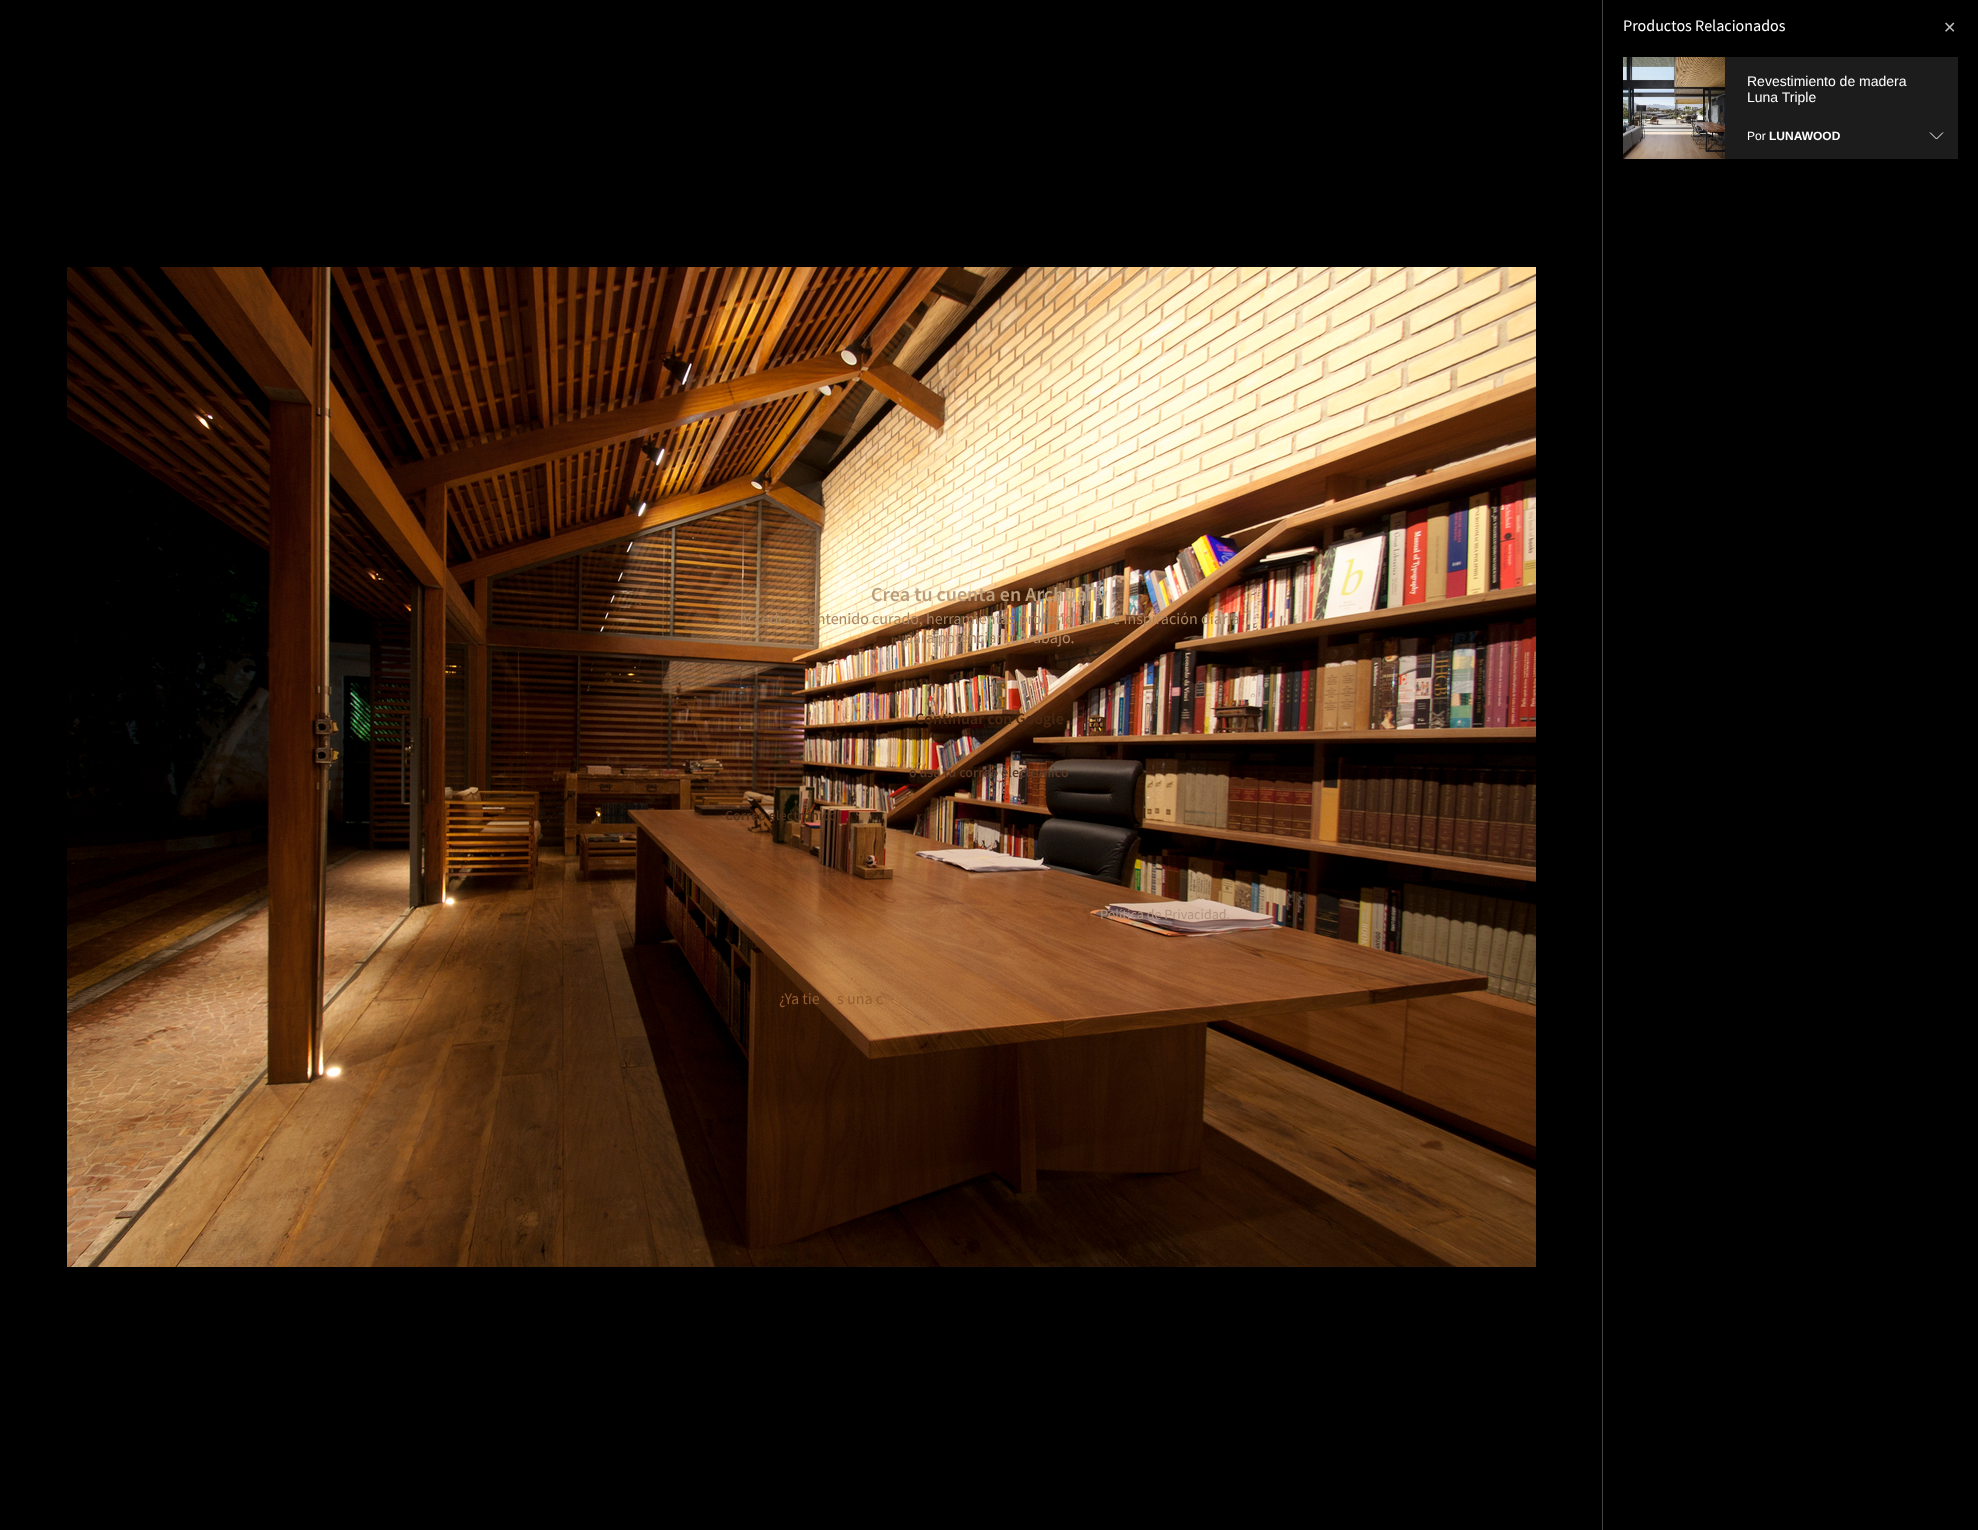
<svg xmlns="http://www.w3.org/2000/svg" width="1978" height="1530">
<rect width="100%" height="100%" fill="#000"/>
<rect x="1602" width="1" height="1530" fill="#444"/>
<text x="1623" y="31" style="font-family:Source Sans Pro;font-size:16px;fill:#fff">Productos Relacionados</text>
<rect x="1725" y="57" width="233" height="102" fill="#1c1c1c"/>
<image x="1623" y="57" width="102" height="102" href="media/1.png"/>
<text x="1747" y="86" style="font-family:Liberation Sans;font-size:14px;fill:#fff">Revestimiento de madera</text>
<text x="1747" y="102" style="font-family:Liberation Sans;font-size:14px;fill:#fff">Luna Triple</text>
<text x="1747" y="140" style="font-family:Liberation Sans;font-size:12px;fill:#fff">Por</text>
<text x="1769" y="140" style="font-family:Liberation Sans;font-size:12px;font-weight:bold;fill:#fff">LUNAWOOD</text>
<path d="M1930 132.5l6.5 6.5l6.5-6.5" fill="none" stroke="#fff"/>
<text x="1943" y="33" style="font-family:DejaVu Sans;font-size:16px;fill:#bbb">✕</text>
<image x="67" y="267" width="1469" height="1000" href="media/2.png"/>
<text x="871" y="601" style="font-family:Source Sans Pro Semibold;font-size:20px;font-weight:600;fill:#bb9e7d">Crea tu cuenta en ArchDaily</text>
<text x="739" y="624" style="font-family:Source Sans Pro;font-size:16px;fill:#aa8561">Accede a contenido curado, herramientas profesionales e inspiración diaria</text>
<text x="904" y="643" style="font-family:Source Sans Pro;font-size:16px;fill:#b18b6a">para potenciar tu trabajo.</text>
<text x="915" y="724" style="font-family:Source Sans Pro Semibold;font-size:16px;font-weight:600;fill:#482711">Continuar con Google</text>
<text x="909" y="777" style="font-family:Source Sans Pro Semibold;font-size:14px;font-weight:600;fill:#593724">o usa tu correo electrónico</text>
<text x="725" y="820" style="font-family:Source Sans Pro Semibold;font-size:14px;font-weight:600;fill:#4c2d16">Correo electrónico</text>
<text x="1100" y="919" style="font-family:Source Sans Pro;font-size:14px;fill:#b1907e">Política de Privacidad.</text>
<text x="779" y="1004" style="font-family:Source Sans Pro;font-size:16px;fill:#955c2f">¿Ya tie</text>
<text x="837" y="1004" style="font-family:Source Sans Pro;font-size:16px;fill:#955c2f">s una c</text>
</svg>
